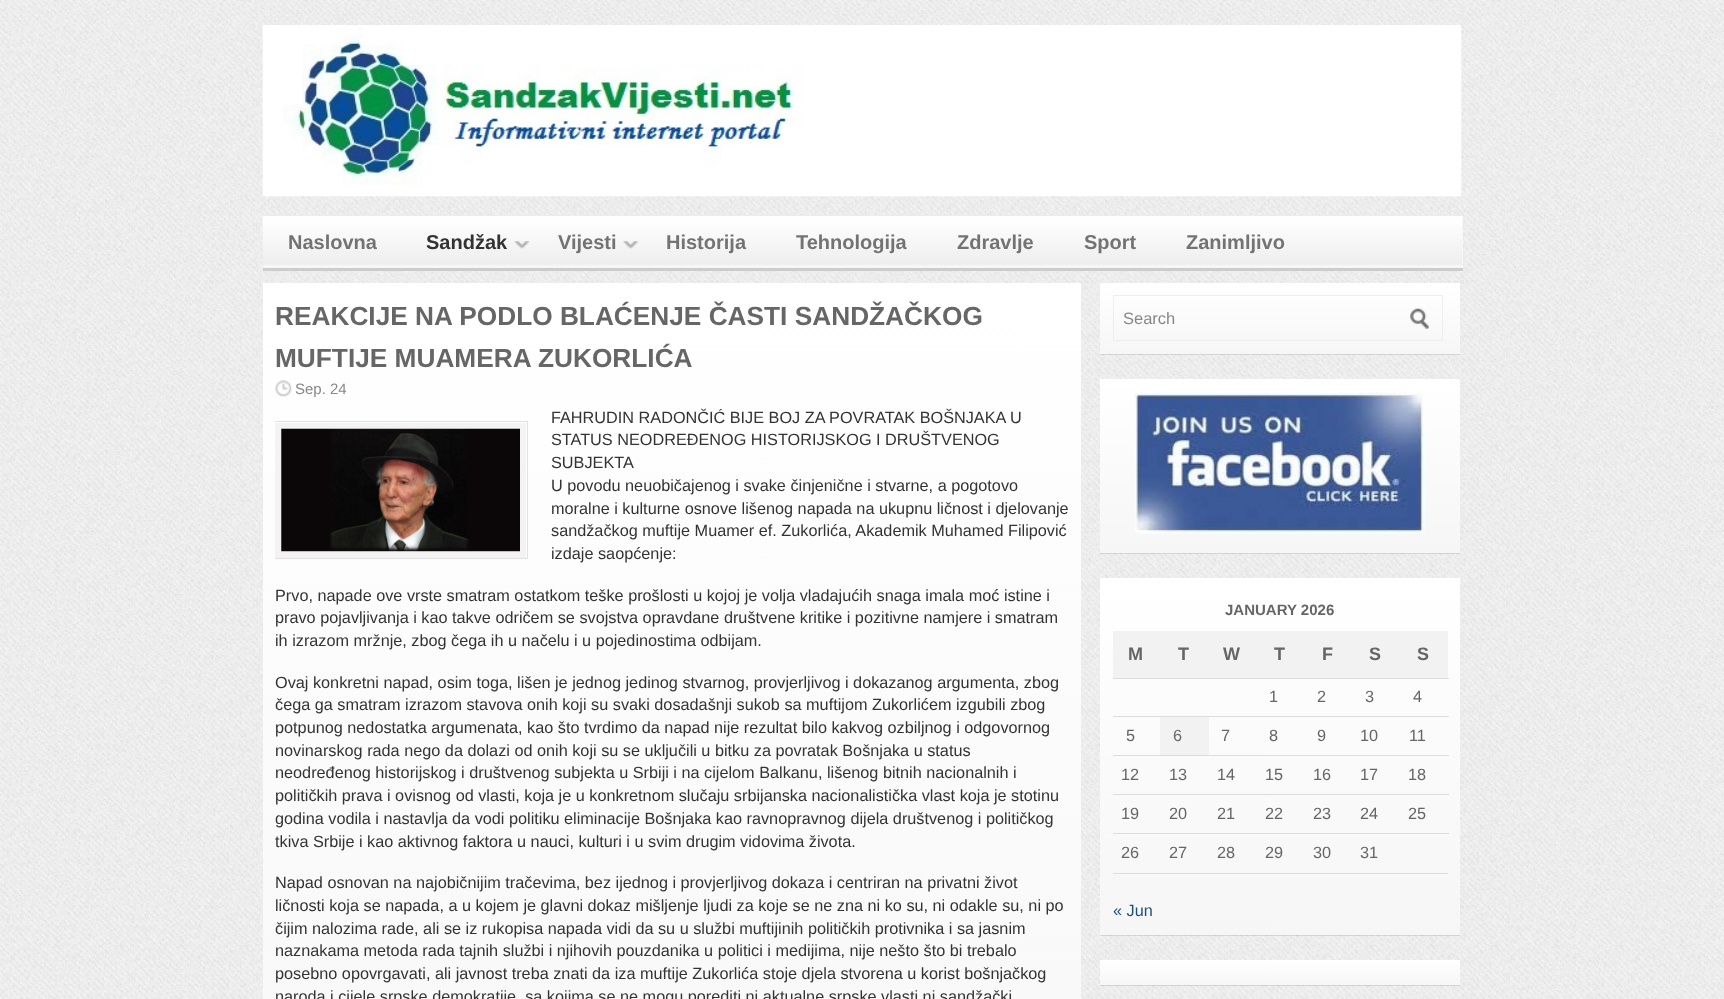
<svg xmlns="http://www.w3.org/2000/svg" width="1724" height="999">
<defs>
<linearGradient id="g1" gradientUnits="userSpaceOnUse" x1="672" y1="282" x2="672" y2="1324"><stop offset="0" stop-color="#fff"/><stop offset="1" stop-color="#f6f6f6"/></linearGradient>
<clipPath id="clip1"><rect x="275" y="406" width="794" height="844"/></clipPath>
<linearGradient id="g2" gradientUnits="userSpaceOnUse" x1="1280" y1="282" x2="1280" y2="354"><stop offset="0" stop-color="#fff"/><stop offset="1" stop-color="#f6f6f6"/></linearGradient>
<linearGradient id="g3" gradientUnits="userSpaceOnUse" x1="1280" y1="379" x2="1280" y2="553"><stop offset="0" stop-color="#fff"/><stop offset="1" stop-color="#f6f6f6"/></linearGradient>
<linearGradient id="g4" gradientUnits="userSpaceOnUse" x1="1280" y1="578" x2="1280" y2="935"><stop offset="0" stop-color="#fff"/><stop offset="1" stop-color="#f6f6f6"/></linearGradient>
<linearGradient id="g5" gradientUnits="userSpaceOnUse" x1="1280" y1="960" x2="1280" y2="985"><stop offset="0" stop-color="#fff"/><stop offset="1" stop-color="#f6f6f6"/></linearGradient>
</defs>
<rect width="100%" height="100%" fill="#fff"/>
<image x="0" y="0" width="1724" height="999" href="media/1.png"/>
<image x="262" y="25" width="1200" height="172" href="media/2.png"/>
<rect x="263" y="216" width="1200" height="52" fill="#f6f6f6"/>
<image x="262" y="216" width="1200" height="49" href="media/3.png"/>
<rect x="263" y="215" width="1200" height="1" fill="#ececec"/>
<rect x="263" y="268" width="1200" height="3" fill="#ccc"/>
<text x="288" y="249" style="font-family:Liberation Sans;font-size:20px;font-weight:bold;fill:#737373">Naslovna</text>
<image x="514" y="241" width="16" height="8" href="media/4.png"/>
<text x="426" y="249" style="font-family:Liberation Sans;font-size:20px;font-weight:bold;fill:#333">Sandžak</text>
<image x="623" y="241" width="16" height="8" href="media/5.png"/>
<text x="558" y="249" style="font-family:Liberation Sans;font-size:20px;font-weight:bold;fill:#737373">Vijesti</text>
<text x="666" y="249" style="font-family:Liberation Sans;font-size:20px;font-weight:bold;fill:#737373">Historija</text>
<text x="796" y="249" style="font-family:Liberation Sans;font-size:20px;font-weight:bold;fill:#737373">Tehnologija</text>
<text x="957" y="249" style="font-family:Liberation Sans;font-size:20px;font-weight:bold;fill:#737373">Zdravlje</text>
<text x="1084" y="249" style="font-family:Liberation Sans;font-size:20px;font-weight:bold;fill:#737373">Sport</text>
<text x="1186" y="249" style="font-family:Liberation Sans;font-size:20px;font-weight:bold;fill:#737373">Zanimljivo</text>
<rect x="263" y="283" width="818" height="716" fill="url(#g1)"/>
<text x="275" y="325" style="font-family:Liberation Sans;font-size:26.25px;font-weight:bold;fill:#666">REAKCIJE NA PODLO BLAĆENJE ČASTI SANDŽAČKOG</text>
<text x="275" y="367" style="font-family:Liberation Sans;font-size:26.25px;font-weight:bold;fill:#666">MUFTIJE MUAMERA ZUKORLIĆA</text>
<image x="275" y="380" width="17" height="17" href="media/6.png"/>
<text x="295" y="394" style="font-family:Liberation Sans;font-size:15px;fill:#888">Sep. 24</text>
<text x="551" y="423" style="font-family:Liberation Sans;font-size:16.25px;fill:#333">FAHRUDIN RADONČIĆ BIJE BOJ ZA POVRATAK BOŠNJAKA U</text>
<rect x="278" y="426" width="245" height="129" fill="none" stroke="#f3f3f3" stroke-width="6"/>
<image x="281" y="428" width="239" height="124" href="media/7.png"/>
<g clip-path="url(#clip1)">
<rect x="274.5" y="421.5" width="253" height="137" fill="none" stroke="#e2e2e2"/>
</g>
<text x="551" y="445" style="font-family:Liberation Sans;font-size:16.25px;fill:#333">STATUS NEODREĐENOG HISTORIJSKOG I DRUŠTVENOG</text>
<text x="551" y="468" style="font-family:Liberation Sans;font-size:16.25px;fill:#333">SUBJEKTA</text>
<text x="551" y="491" style="font-family:Liberation Sans;font-size:16.25px;fill:#333">U povodu neuobičajenog i svake činjenične i stvarne, a pogotovo</text>
<text x="551" y="514" style="font-family:Liberation Sans;font-size:16.25px;fill:#333">moralne i kulturne osnove lišenog napada na ukupnu ličnost i djelovanje</text>
<text x="551" y="536" style="font-family:Liberation Sans;font-size:16.25px;fill:#333">sandžačkog muftije Muamer ef. Zukorlića, Akademik Muhamed Filipović</text>
<text x="551" y="559" style="font-family:Liberation Sans;font-size:16.25px;fill:#333">izdaje saopćenje:</text>
<text x="275" y="601" style="font-family:Liberation Sans;font-size:16.25px;fill:#333">Prvo, napade ove vrste smatram ostatkom teške prošlosti u kojoj je volja vladajućih snaga imala moć istine i</text>
<text x="275" y="623" style="font-family:Liberation Sans;font-size:16.25px;fill:#333">pravo pojavljivanja i kao takve odričem se svojstva opravdane društvene kritike i pozitivne namjere i smatram</text>
<text x="275" y="646" style="font-family:Liberation Sans;font-size:16.25px;fill:#333">ih izrazom mržnje, zbog čega ih u načelu i u pojedinostima odbijam.</text>
<text x="275" y="688" style="font-family:Liberation Sans;font-size:16.25px;fill:#333">Ovaj konkretni napad, osim toga, lišen je jednog jedinog stvarnog, provjerljivog i dokazanog argumenta, zbog</text>
<text x="275" y="710" style="font-family:Liberation Sans;font-size:16.25px;fill:#333">čega ga smatram izrazom stavova onih koji su svaki dosadašnji sukob sa muftijom Zukorlićem izgubili zbog</text>
<text x="275" y="733" style="font-family:Liberation Sans;font-size:16.25px;fill:#333">potpunog nedostatka argumenata, kao što tvrdimo da napad nije rezultat bilo kakvog ozbiljnog i odgovornog</text>
<text x="275" y="756" style="font-family:Liberation Sans;font-size:16.25px;fill:#333">novinarskog rada nego da dolazi od onih koji su se uključili u bitku za povratak Bošnjaka u status</text>
<text x="275" y="778" style="font-family:Liberation Sans;font-size:16.25px;fill:#333">neodređenog historijskog i društvenog subjekta u Srbiji i na cijelom Balkanu, lišenog bitnih nacionalnih i</text>
<text x="275" y="801" style="font-family:Liberation Sans;font-size:16.25px;fill:#333">političkih prava i ovisnog od vlasti, koja je u konkretnom slučaju srbijanska nacionalistička vlast koja je stotinu</text>
<text x="275" y="824" style="font-family:Liberation Sans;font-size:16.25px;fill:#333">godina vodila i nastavlja da vodi politiku eliminacije Bošnjaka kao ravnopravnog dijela društvenog i političkog</text>
<text x="275" y="847" style="font-family:Liberation Sans;font-size:16.25px;fill:#333">tkiva Srbije i kao aktivnog faktora u nauci, kulturi i u svim drugim vidovima života.</text>
<text x="275" y="888" style="font-family:Liberation Sans;font-size:16.25px;fill:#333">Napad osnovan na najobičnijim tračevima, bez ijednog i provjerljivog dokaza i centriran na privatni život</text>
<text x="275" y="911" style="font-family:Liberation Sans;font-size:16.25px;fill:#333">ličnosti koja se napada, a u kojem je glavni dokaz mišljenje ljudi za koje se ne zna ni ko su, ni odakle su, ni po</text>
<text x="275" y="934" style="font-family:Liberation Sans;font-size:16.25px;fill:#333">čijim nalozima rade, ali se iz rukopisa napada vidi da su u službi muftijinih političkih protivnika i sa jasnim</text>
<text x="275" y="956" style="font-family:Liberation Sans;font-size:16.25px;fill:#333">naznakama metoda rada tajnih službi i njihovih pouzdanika u politici i medijima, nije nešto što bi trebalo</text>
<text x="275" y="979" style="font-family:Liberation Sans;font-size:16.25px;fill:#333">posebno opovrgavati, ali javnost treba znati da iza muftije Zukorlića stoje djela stvorena u korist bošnjačkog</text>
<text x="275" y="1002" style="font-family:Liberation Sans;font-size:16.25px;fill:#333">naroda i cijele srpske demokratije, sa kojima se ne mogu porediti ni aktualne srpske vlasti ni sandžački</text>
<rect x="1100" y="284" width="360" height="71" fill="#0000001a" filter="blur(0.5px)"/>
<rect x="1100" y="283" width="360" height="71" fill="url(#g2)"/>
<image x="1410" y="308" width="19" height="21" href="media/8.png"/>
<rect x="1113.5" y="295.5" width="329" height="45" fill="none" stroke="#eee"/>
<text x="1123" y="324" style="font-family:Liberation Sans;font-size:16.5px;fill:#888">Search</text>
<rect x="1100" y="380" width="360" height="174" fill="#0000001a" filter="blur(0.5px)"/>
<rect x="1100" y="379" width="360" height="174" fill="url(#g3)"/>
<image x="1135" y="391" width="290" height="143" href="media/9.png"/>
<rect x="1100" y="579" width="360" height="357" fill="#0000001a" filter="blur(0.5px)"/>
<rect x="1100" y="578" width="360" height="357" fill="url(#g4)"/>
<rect x="1113" y="873" width="335" height="1" fill="#ddd"/>
<text x="1225" y="615" style="font-family:Liberation Sans;font-size:15px;font-weight:bold;fill:#666">JANUARY 2026</text>
<rect x="1113" y="631" width="335" height="47" fill="#f2f2f2"/>
<text x="1128" y="660" style="font-family:Liberation Sans;font-size:18px;font-weight:bold;letter-spacing:2px;fill:#666">M</text>
<text x="1178" y="660" style="font-family:Liberation Sans;font-size:18px;font-weight:bold;letter-spacing:2px;fill:#666">T</text>
<text x="1223" y="660" style="font-family:Liberation Sans;font-size:18px;font-weight:bold;letter-spacing:2px;fill:#666">W</text>
<text x="1274" y="660" style="font-family:Liberation Sans;font-size:18px;font-weight:bold;letter-spacing:2px;fill:#666">T</text>
<text x="1322" y="660" style="font-family:Liberation Sans;font-size:18px;font-weight:bold;letter-spacing:2px;fill:#666">F</text>
<text x="1369" y="660" style="font-family:Liberation Sans;font-size:18px;font-weight:bold;letter-spacing:2px;fill:#666">S</text>
<text x="1417" y="660" style="font-family:Liberation Sans;font-size:18px;font-weight:bold;letter-spacing:2px;fill:#666">S</text>
<text x="1269" y="702" style="font-family:Liberation Sans;font-size:16.25px;fill:#666">1</text>
<text x="1317" y="702" style="font-family:Liberation Sans;font-size:16.25px;fill:#666">2</text>
<text x="1365" y="702" style="font-family:Liberation Sans;font-size:16.25px;fill:#666">3</text>
<rect x="1113" y="678" width="336" height="1" fill="#ddd"/>
<text x="1413" y="702" style="font-family:Liberation Sans;font-size:16.25px;fill:#666">4</text>
<text x="1126" y="741" style="font-family:Liberation Sans;font-size:16.25px;fill:#666">5</text>
<rect x="1160" y="717" width="49" height="38" fill="#f2f2f2"/>
<text x="1173" y="741" style="font-family:Liberation Sans;font-size:16.25px;fill:#666">6</text>
<text x="1221" y="741" style="font-family:Liberation Sans;font-size:16.25px;fill:#666">7</text>
<text x="1269" y="741" style="font-family:Liberation Sans;font-size:16.25px;fill:#666">8</text>
<text x="1317" y="741" style="font-family:Liberation Sans;font-size:16.25px;fill:#666">9</text>
<text x="1360" y="741" style="font-family:Liberation Sans;font-size:16.25px;fill:#666">10</text>
<rect x="1113" y="716" width="336" height="1" fill="#ddd"/>
<text x="1409" y="741" style="font-family:Liberation Sans;font-size:16.25px;fill:#666">11</text>
<text x="1121" y="780" style="font-family:Liberation Sans;font-size:16.25px;fill:#666">12</text>
<text x="1169" y="780" style="font-family:Liberation Sans;font-size:16.25px;fill:#666">13</text>
<text x="1217" y="780" style="font-family:Liberation Sans;font-size:16.25px;fill:#666">14</text>
<text x="1265" y="780" style="font-family:Liberation Sans;font-size:16.25px;fill:#666">15</text>
<text x="1313" y="780" style="font-family:Liberation Sans;font-size:16.25px;fill:#666">16</text>
<text x="1360" y="780" style="font-family:Liberation Sans;font-size:16.25px;fill:#666">17</text>
<rect x="1113" y="755" width="336" height="1" fill="#ddd"/>
<text x="1408" y="780" style="font-family:Liberation Sans;font-size:16.25px;fill:#666">18</text>
<text x="1121" y="819" style="font-family:Liberation Sans;font-size:16.25px;fill:#666">19</text>
<text x="1169" y="819" style="font-family:Liberation Sans;font-size:16.25px;fill:#666">20</text>
<text x="1217" y="819" style="font-family:Liberation Sans;font-size:16.25px;fill:#666">21</text>
<text x="1265" y="819" style="font-family:Liberation Sans;font-size:16.25px;fill:#666">22</text>
<text x="1313" y="819" style="font-family:Liberation Sans;font-size:16.25px;fill:#666">23</text>
<text x="1360" y="819" style="font-family:Liberation Sans;font-size:16.25px;fill:#666">24</text>
<rect x="1113" y="794" width="336" height="1" fill="#ddd"/>
<text x="1408" y="819" style="font-family:Liberation Sans;font-size:16.25px;fill:#666">25</text>
<rect x="1113" y="833" width="336" height="1" fill="#ddd"/>
<text x="1121" y="858" style="font-family:Liberation Sans;font-size:16.25px;fill:#666">26</text>
<text x="1169" y="858" style="font-family:Liberation Sans;font-size:16.25px;fill:#666">27</text>
<text x="1217" y="858" style="font-family:Liberation Sans;font-size:16.25px;fill:#666">28</text>
<text x="1265" y="858" style="font-family:Liberation Sans;font-size:16.25px;fill:#666">29</text>
<text x="1313" y="858" style="font-family:Liberation Sans;font-size:16.25px;fill:#666">30</text>
<text x="1360" y="858" style="font-family:Liberation Sans;font-size:16.25px;fill:#666">31</text>
<text x="1113" y="916" style="font-family:Liberation Sans;font-size:16.25px;fill:#1f4f82">« Jun</text>
<rect x="1100" y="961" width="360" height="25" fill="#0000001a" filter="blur(0.5px)"/>
<rect x="1100" y="960" width="360" height="25" fill="url(#g5)"/>
</svg>
